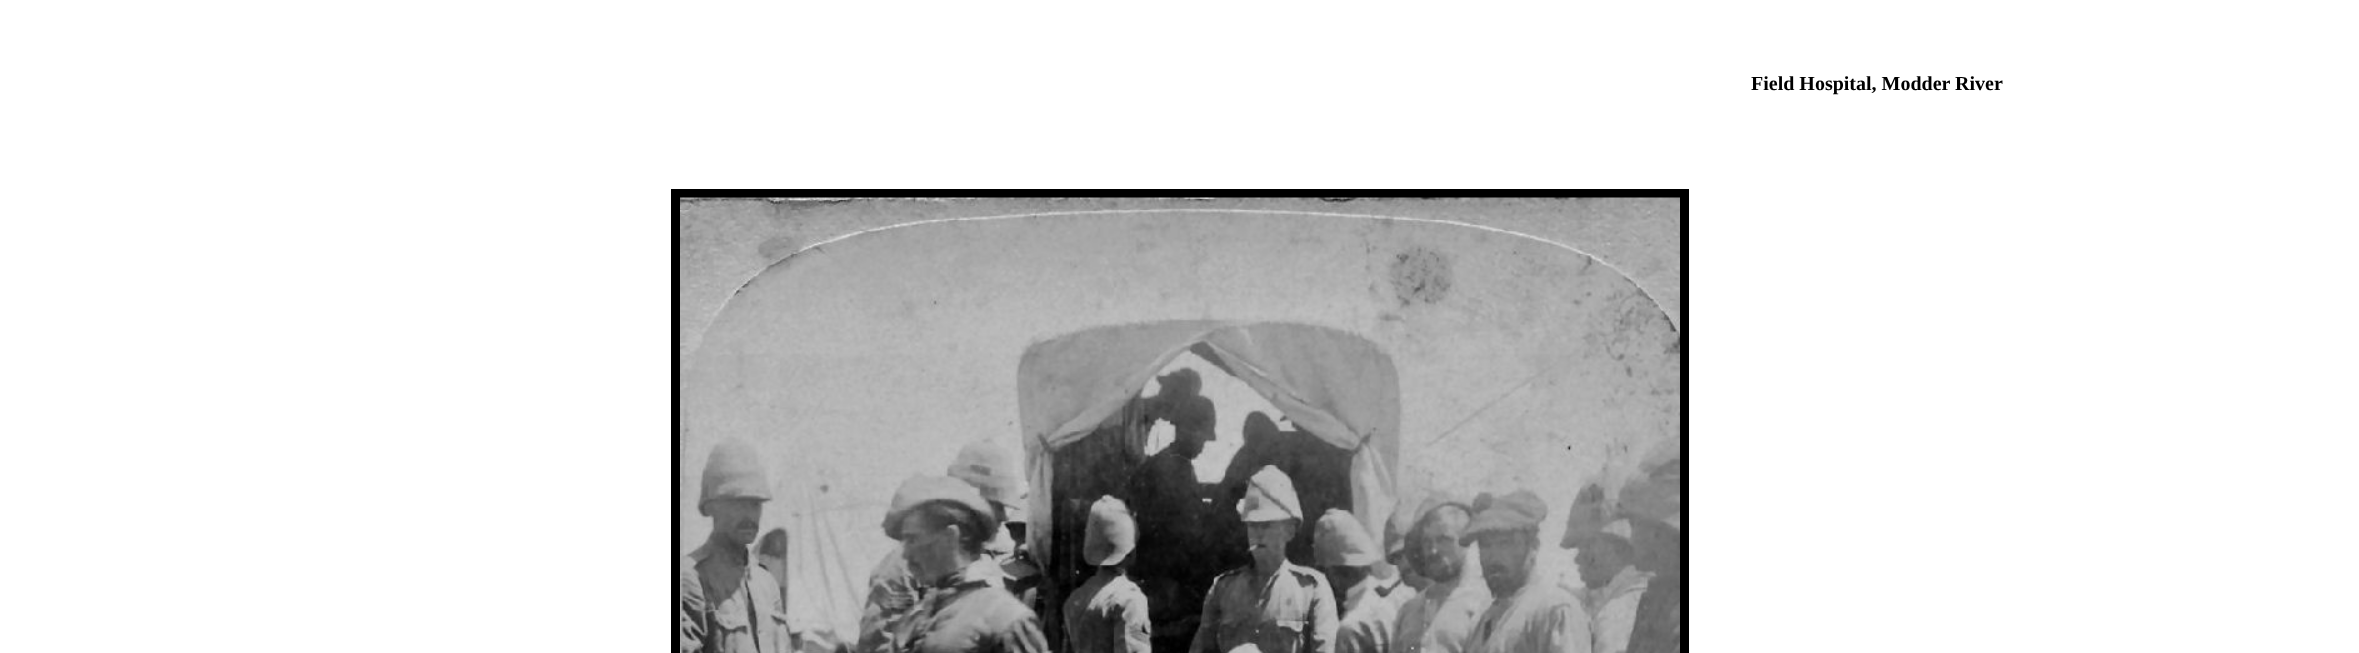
<svg xmlns="http://www.w3.org/2000/svg" width="2359" height="653">
<rect width="100%" height="100%" fill="#fff"/>
<text x="1751" y="90" style="font-family:Liberation Serif;font-size:20px;font-weight:bold;fill:#000">Field Hospital, Modder River</text>
<rect x="671" y="189" width="1018" height="464" fill="#000"/>
<image x="680" y="197" width="1000" height="456" href="media/1.png"/>
</svg>
